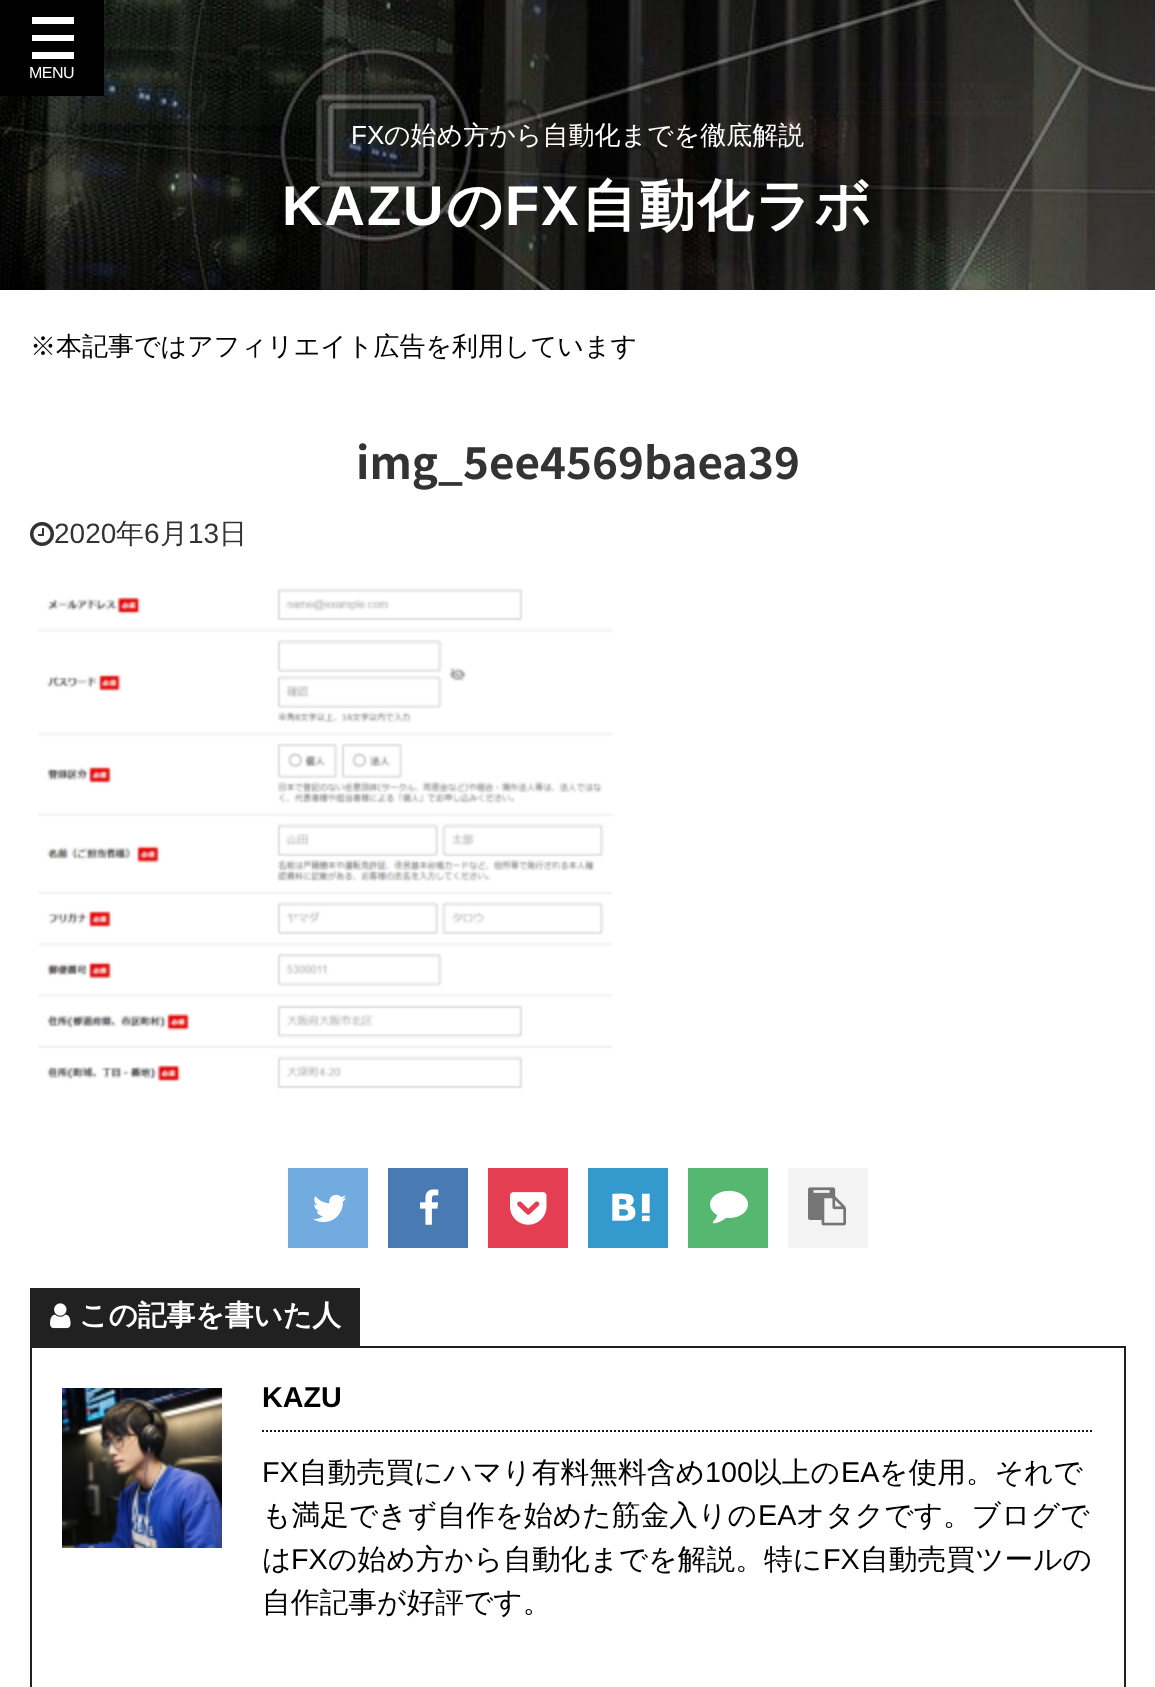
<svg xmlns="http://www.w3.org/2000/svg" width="1155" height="1687">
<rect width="100%" height="100%" fill="#fff"/>
<image x="0" y="0" width="1155" height="290" href="media/1.png"/>
<rect width="104" height="96" fill="#000"/>
<path d="M32 17h42v7h-42zm0 35h42v7h-42zm0-17h42v6h-42z" fill="#fff"/>
<text x="29" y="78" style="font-family:Liberation Sans;font-size:16px;letter-spacing:-0.5px;fill:#fff">MENU</text>
<text x="351" y="144" style="font-family:Liberation Sans;font-size:26px;fill:#fff">FX</text>
<text x="384" y="144" style="font-family:WenQuanYi Zen Hei;font-size:26px;font-weight:500;fill:#fff">の始め方から自動化までを徹底解説</text>
<text x="282" y="225" style="font-family:Liberation Sans;font-size:56px;font-weight:bold;letter-spacing:2px;fill:#fff">KAZU</text>
<text x="446" y="225" style="font-family:WenQuanYi Zen Hei;font-size:56px;font-weight:bold;letter-spacing:2px;fill:#fff">の</text>
<text x="505" y="225" style="font-family:Liberation Sans;font-size:56px;font-weight:bold;letter-spacing:2px;fill:#fff">FX</text>
<text x="581" y="225" style="font-family:WenQuanYi Zen Hei;font-size:56px;font-weight:bold;letter-spacing:2px;fill:#fff">自動化ラボ</text>
<text x="30" y="355" style="font-family:WenQuanYi Zen Hei;font-size:26px;font-weight:500;fill:#000">※本記事ではアフィリエイト広告を利用しています</text>
<text x="356" y="479" style="font-family:Noto Sans JP;font-size:44px;font-weight:bold;fill:#333">img_5ee4569baea39</text>
<image x="30" y="522" width="24" height="24" href="media/2.png"/>
<text x="54" y="543" style="font-family:Liberation Sans;font-size:28px;fill:#333">2020</text>
<text x="116" y="543" style="font-family:WenQuanYi Zen Hei;font-size:28px;font-weight:500;fill:#333">年</text>
<text x="144" y="543" style="font-family:Liberation Sans;font-size:28px;fill:#333">6</text>
<text x="160" y="543" style="font-family:WenQuanYi Zen Hei;font-size:28px;font-weight:500;fill:#333">月</text>
<text x="188" y="543" style="font-family:Liberation Sans;font-size:28px;fill:#333">13</text>
<text x="219" y="543" style="font-family:WenQuanYi Zen Hei;font-size:28px;font-weight:500;fill:#333">日</text>
<image x="38" y="588" width="575" height="501" href="media/3.png"/>
<rect x="288" y="1168" width="80" height="80" fill="#71abdf"/>
<image x="313" y="1194" width="34" height="28" href="media/4.png"/>
<rect x="388" y="1168" width="80" height="80" fill="#4a7ab4"/>
<image x="420" y="1189" width="19" height="36" href="media/5.png"/>
<rect x="488" y="1168" width="80" height="80" fill="#e53e53"/>
<image x="510" y="1192" width="37" height="33" href="media/6.png"/>
<rect x="588" y="1168" width="80" height="80" fill="#349ace"/>
<image x="612" y="1193" width="38" height="29" href="media/7.png"/>
<rect x="688" y="1168" width="80" height="80" fill="#56b870"/>
<image x="710" y="1190" width="38" height="34" href="media/8.png"/>
<rect x="788" y="1168" width="80" height="80" fill="#f3f3f3"/>
<image x="808" y="1187" width="38" height="39" href="media/9.png"/>
<rect x="30" y="1288" width="330" height="58" fill="#212121"/>
<image x="50" y="1303" width="21" height="26" href="media/10.png"/>
<text x="79" y="1325" style="font-family:WenQuanYi Zen Hei;font-size:28.75px;font-weight:bold;fill:#fff">この記事を書いた人</text>
<rect x="31" y="1347" width="1094" height="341" fill="none" stroke="#212121" stroke-width="2"/>
<image x="62" y="1388" width="160" height="160" href="media/11.png"/>
<path d="M262 1431h832" fill="none" stroke="#1a1a1a" stroke-width="2" stroke-dasharray="2 2"/>
<text x="262" y="1407" style="font-family:Liberation Sans;font-size:28.75px;font-weight:bold;fill:#000">KAZU</text>
<text x="262" y="1482" style="font-family:Liberation Sans;font-size:28.75px;fill:#000">FX</text>
<text x="299" y="1482" style="font-family:WenQuanYi Zen Hei;font-size:28.75px;font-weight:500;fill:#000">自動売買にハマり有料無料含め</text>
<text x="705" y="1482" style="font-family:Liberation Sans;font-size:28.75px;fill:#000">100</text>
<text x="753" y="1482" style="font-family:WenQuanYi Zen Hei;font-size:28.75px;font-weight:500;fill:#000">以上の</text>
<text x="841" y="1482" style="font-family:Liberation Sans;font-size:28.75px;fill:#000">EA</text>
<text x="879" y="1482" style="font-family:WenQuanYi Zen Hei;font-size:28.75px;font-weight:500;fill:#000">を使用。それで</text>
<text x="262" y="1525" style="font-family:WenQuanYi Zen Hei;font-size:28.75px;font-weight:500;fill:#000">も満足できず自作を始めた筋金入りの</text>
<text x="758" y="1525" style="font-family:Liberation Sans;font-size:28.75px;fill:#000">EA</text>
<text x="796" y="1525" style="font-family:WenQuanYi Zen Hei;font-size:28.75px;font-weight:500;fill:#000">オタクです。ブログで</text>
<text x="262" y="1569" style="font-family:WenQuanYi Zen Hei;font-size:28.75px;font-weight:500;fill:#000">は</text>
<text x="291" y="1569" style="font-family:Liberation Sans;font-size:28.75px;fill:#000">FX</text>
<text x="328" y="1569" style="font-family:WenQuanYi Zen Hei;font-size:28.75px;font-weight:500;fill:#000">の始め方から自動化までを解説。特に</text>
<text x="823" y="1569" style="font-family:Liberation Sans;font-size:28.75px;fill:#000">FX</text>
<text x="860" y="1569" style="font-family:WenQuanYi Zen Hei;font-size:28.75px;font-weight:500;fill:#000">自動売買ツールの</text>
<text x="262" y="1612" style="font-family:WenQuanYi Zen Hei;font-size:28.75px;font-weight:500;fill:#000">自作記事が好評です。</text>
</svg>
